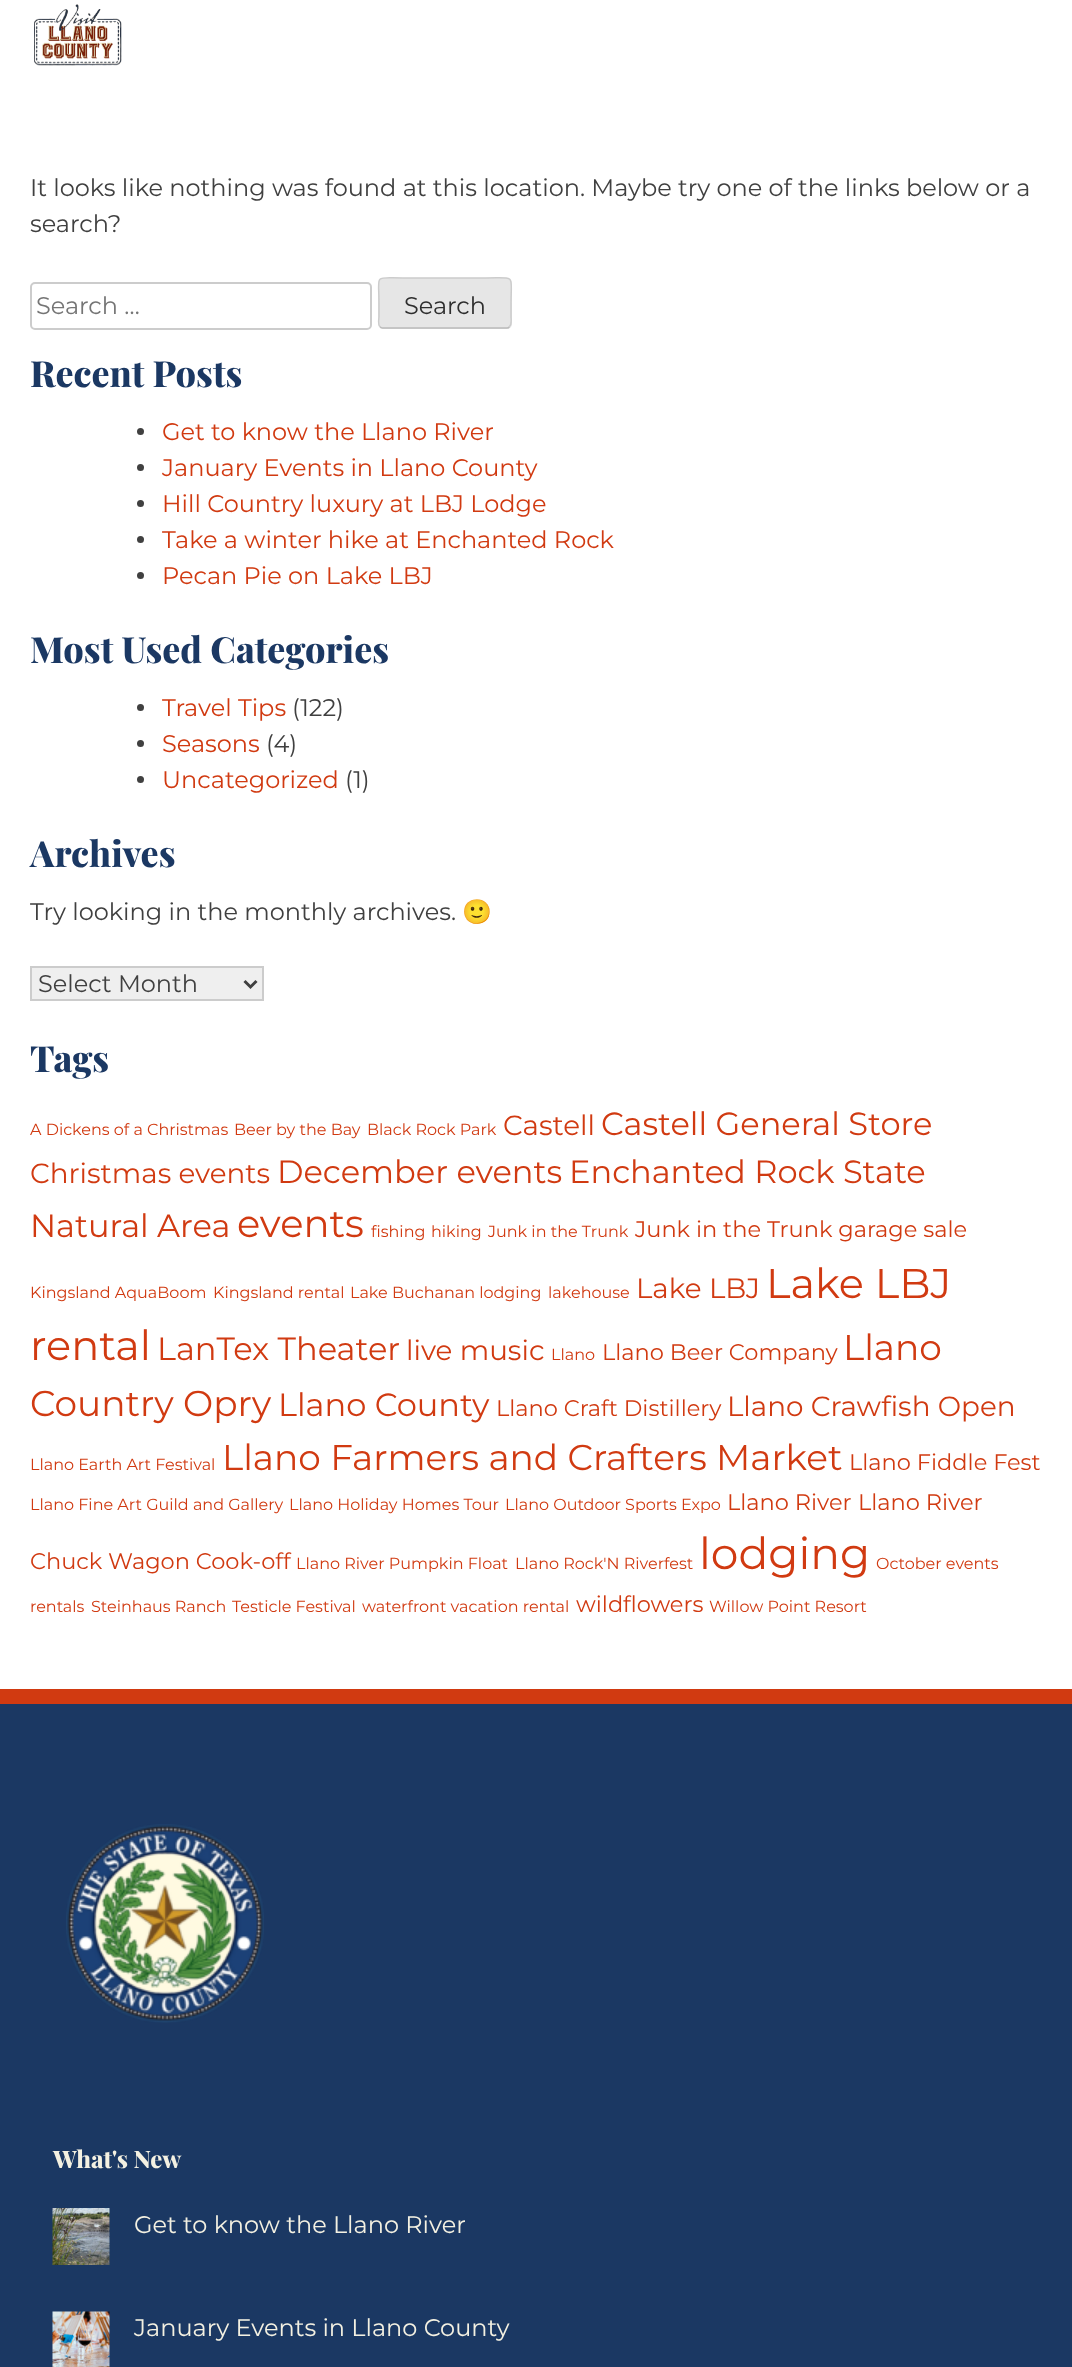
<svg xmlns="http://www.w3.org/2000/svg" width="1072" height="2367">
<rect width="100%" height="100%" fill="#fff"/>
<image x="34" y="4" width="88" height="62" href="media/1.png"/>
<text x="30" y="196" style="font-family:Montserrat;font-size:24px;fill:#404040">It looks like nothing was found at this location. Maybe try one of the links below or a</text>
<text x="30" y="232" style="font-family:Montserrat;font-size:24px;fill:#404040">search?</text>
<rect x="31" y="283" width="340" height="46" rx="4" fill="none" stroke="#ccc" stroke-width="2"/>
<text x="36" y="314" style="font-family:Montserrat;font-size:24px;fill:#757575">Search …</text>
<rect x="378" y="278" width="134" height="51" rx="5" fill="#e6e6e6"/>
<path d="M509.5 326.5c-.5 1-1.5 1.5-2.5 1.5h-124.5c-1 0-2-.5-2.5-1.5" fill="none" stroke="#bbb" stroke-width="1.5"/>
<path d="M380 326.5c-2.5-2-1-8-1-9.5v-14c0-29.5-6-25 24-25h83c30.5 0 25-4.5 25 25v14c0 1.5 1 7.5-1.5 9.5" fill="none" stroke="#ccc" stroke-width="1.5"/>
<text x="404" y="314" style="font-family:Montserrat;font-size:24px;fill:#2e2e2e">Search</text>
<text x="30" y="387" style="font-family:Playfair Display;font-size:36px;font-weight:800;fill:#1b3863">Recent Posts</text>
<circle cx="140.5" cy="431.5" r="3.5" fill="#404040"/>
<text x="162" y="440" style="font-family:Montserrat;font-size:24px;fill:#d13a11">Get to know the Llano River</text>
<circle cx="140.5" cy="467.5" r="3.5" fill="#404040"/>
<text x="162" y="476" style="font-family:Montserrat;font-size:24px;fill:#d13a11">January Events in Llano County</text>
<circle cx="140.5" cy="503.5" r="3.5" fill="#404040"/>
<text x="162" y="512" style="font-family:Montserrat;font-size:24px;fill:#d13a11">Hill Country luxury at LBJ Lodge</text>
<circle cx="140.5" cy="539.5" r="3.5" fill="#404040"/>
<text x="162" y="548" style="font-family:Montserrat;font-size:24px;fill:#d13a11">Take a winter hike at Enchanted Rock</text>
<circle cx="140.5" cy="575.5" r="3.5" fill="#404040"/>
<text x="162" y="584" style="font-family:Montserrat;font-size:24px;fill:#d13a11">Pecan Pie on Lake LBJ</text>
<text x="30" y="663" style="font-family:Playfair Display;font-size:36px;font-weight:800;fill:#1b3863">Most Used Categories</text>
<circle cx="140.5" cy="707.5" r="3.5" fill="#404040"/>
<text x="162" y="716" style="font-family:Montserrat;font-size:24px;fill:#d13a11">Travel Tips</text>
<text x="292" y="716" style="font-family:Montserrat;font-size:24px;fill:#404040">(122)</text>
<circle cx="140.5" cy="743.5" r="3.5" fill="#404040"/>
<text x="162" y="752" style="font-family:Montserrat;font-size:24px;fill:#d13a11">Seasons</text>
<text x="266" y="752" style="font-family:Montserrat;font-size:24px;fill:#404040">(4)</text>
<circle cx="140.5" cy="779.5" r="3.5" fill="#404040"/>
<text x="162" y="788" style="font-family:Montserrat;font-size:24px;fill:#d13a11">Uncategorized</text>
<text x="345" y="788" style="font-family:Montserrat;font-size:24px;fill:#404040">(1)</text>
<text x="30" y="867" style="font-family:Playfair Display;font-size:36px;font-weight:800;fill:#1b3863">Archives</text>
<text x="30" y="920" style="font-family:Montserrat;font-size:24px;fill:#404040">Try looking in the monthly archives.</text>
<text x="462" y="920" style="font-family:Noto Color Emoji;font-size:24px;fill:#404040">🙂</text>
<rect x="31" y="967" width="232" height="33" fill="#efefef" stroke="#ccc" stroke-width="2"/>
<path d="M244.5 981l6 6l6-6" fill="none" stroke="#404040" stroke-width="3"/>
<text x="38" y="992" style="font-family:Montserrat;font-size:24px;fill:#404040">Select Month</text>
<text x="30" y="1072" style="font-family:Playfair Display;font-size:36px;font-weight:800;fill:#1b3863">Tags</text>
<text x="30" y="1135" style="font-family:Montserrat;font-size:16px;fill:#d13a11">A Dickens of a Christmas</text>
<text x="234" y="1135" style="font-family:Montserrat;font-size:16px;fill:#d13a11">Beer by the Bay</text>
<text x="367" y="1135" style="font-family:Montserrat;font-size:16px;fill:#d13a11">Black Rock Park</text>
<text x="503" y="1135" style="font-family:Montserrat;font-size:27.8px;fill:#d13a11">Castell</text>
<text x="601" y="1135" style="font-family:Montserrat;font-size:32.1px;fill:#d13a11">Castell General Store</text>
<text x="30" y="1183" style="font-family:Montserrat;font-size:27.8px;fill:#d13a11">Christmas events</text>
<text x="277" y="1183" style="font-family:Montserrat;font-size:32.1px;fill:#d13a11">December events</text>
<text x="569" y="1183" style="font-family:Montserrat;font-size:32.1px;fill:#d13a11">Enchanted Rock State</text>
<text x="30" y="1237" style="font-family:Montserrat;font-size:32.1px;fill:#d13a11">Natural Area</text>
<text x="237" y="1237" style="font-family:Montserrat;font-size:38.5px;fill:#d13a11">events</text>
<text x="371" y="1237" style="font-family:Montserrat;font-size:16px;fill:#d13a11">fishing</text>
<text x="431" y="1237" style="font-family:Montserrat;font-size:16px;fill:#d13a11">hiking</text>
<text x="488" y="1237" style="font-family:Montserrat;font-size:16px;fill:#d13a11">Junk in the Trunk</text>
<text x="635" y="1237" style="font-family:Montserrat;font-size:22.5px;fill:#d13a11">Junk in the Trunk garage sale</text>
<text x="30" y="1298" style="font-family:Montserrat;font-size:16px;fill:#d13a11">Kingsland AquaBoom</text>
<text x="213" y="1298" style="font-family:Montserrat;font-size:16px;fill:#d13a11">Kingsland rental</text>
<text x="350" y="1298" style="font-family:Montserrat;font-size:16px;fill:#d13a11">Lake Buchanan lodging</text>
<text x="548" y="1298" style="font-family:Montserrat;font-size:16px;fill:#d13a11">lakehouse</text>
<text x="636" y="1298" style="font-family:Montserrat;font-size:27.8px;fill:#d13a11">Lake LBJ</text>
<text x="766" y="1298" style="font-family:Montserrat;font-size:41.5px;fill:#d13a11">Lake LBJ</text>
<text x="30" y="1360" style="font-family:Montserrat;font-size:41.5px;fill:#d13a11">rental</text>
<text x="157" y="1360" style="font-family:Montserrat;font-size:32.1px;fill:#d13a11">LanTex Theater</text>
<text x="406" y="1360" style="font-family:Montserrat;font-size:27.8px;fill:#d13a11">live music</text>
<text x="551" y="1360" style="font-family:Montserrat;font-size:16px;fill:#d13a11">Llano</text>
<text x="602" y="1360" style="font-family:Montserrat;font-size:22.5px;fill:#d13a11">Llano Beer Company</text>
<text x="843" y="1360" style="font-family:Montserrat;font-size:35.9px;fill:#d13a11">Llano</text>
<text x="30" y="1416" style="font-family:Montserrat;font-size:35.9px;fill:#d13a11">Country Opry</text>
<text x="278" y="1416" style="font-family:Montserrat;font-size:32.1px;fill:#d13a11">Llano County</text>
<text x="496" y="1416" style="font-family:Montserrat;font-size:22.5px;fill:#d13a11">Llano Craft Distillery</text>
<text x="727" y="1416" style="font-family:Montserrat;font-size:27.8px;fill:#d13a11">Llano Crawfish Open</text>
<text x="30" y="1470" style="font-family:Montserrat;font-size:16px;fill:#d13a11">Llano Earth Art Festival</text>
<text x="222" y="1470" style="font-family:Montserrat;font-size:35.9px;fill:#d13a11">Llano Farmers and Crafters Market</text>
<text x="849" y="1470" style="font-family:Montserrat;font-size:22.5px;fill:#d13a11">Llano Fiddle Fest</text>
<text x="30" y="1510" style="font-family:Montserrat;font-size:16px;fill:#d13a11">Llano Fine Art Guild and Gallery</text>
<text x="289" y="1510" style="font-family:Montserrat;font-size:16px;fill:#d13a11">Llano Holiday Homes Tour</text>
<text x="505" y="1510" style="font-family:Montserrat;font-size:16px;fill:#d13a11">Llano Outdoor Sports Expo</text>
<text x="727" y="1510" style="font-family:Montserrat;font-size:22.5px;fill:#d13a11">Llano River</text>
<text x="858" y="1510" style="font-family:Montserrat;font-size:22.5px;fill:#d13a11">Llano River</text>
<text x="30" y="1569" style="font-family:Montserrat;font-size:22.5px;fill:#d13a11">Chuck Wagon Cook-off</text>
<text x="296" y="1569" style="font-family:Montserrat;font-size:16px;fill:#d13a11">Llano River Pumpkin Float</text>
<text x="515" y="1569" style="font-family:Montserrat;font-size:16px;fill:#d13a11">Llano Rock'N Riverfest</text>
<text x="699" y="1569" style="font-family:Montserrat;font-size:44px;fill:#d13a11">lodging</text>
<text x="876" y="1569" style="font-family:Montserrat;font-size:16px;fill:#d13a11">October events</text>
<text x="30" y="1612" style="font-family:Montserrat;font-size:16px;fill:#d13a11">rentals</text>
<text x="91" y="1612" style="font-family:Montserrat;font-size:16px;fill:#d13a11">Steinhaus Ranch</text>
<text x="232" y="1612" style="font-family:Montserrat;font-size:16px;fill:#d13a11">Testicle Festival</text>
<text x="362" y="1612" style="font-family:Montserrat;font-size:16px;fill:#d13a11">waterfront vacation rental</text>
<text x="576" y="1612" style="font-family:Montserrat;font-size:22.5px;fill:#d13a11">wildflowers</text>
<text x="709" y="1612" style="font-family:Montserrat;font-size:16px;fill:#d13a11">Willow Point Resort</text>
<rect y="1704" width="1072" height="663" fill="#1b3863"/>
<rect y="1689" width="1072" height="15" fill="#d13a11"/>
<image x="66" y="1824" width="198" height="199" href="media/2.png"/>
<text x="53" y="2168" style="font-family:Playfair Display;font-size:24px;font-weight:800;fill:#f4f1e2">What's New</text>
<image x="52" y="2208" width="58" height="57" href="media/3.png"/>
<text x="134" y="2233" style="font-family:Montserrat;font-size:24px;fill:#f4f1e2">Get to know the Llano River</text>
<image x="52" y="2311" width="58" height="56" href="media/4.png"/>
<text x="134" y="2336" style="font-family:Montserrat;font-size:24px;fill:#f4f1e2">January Events in Llano County</text>
</svg>
